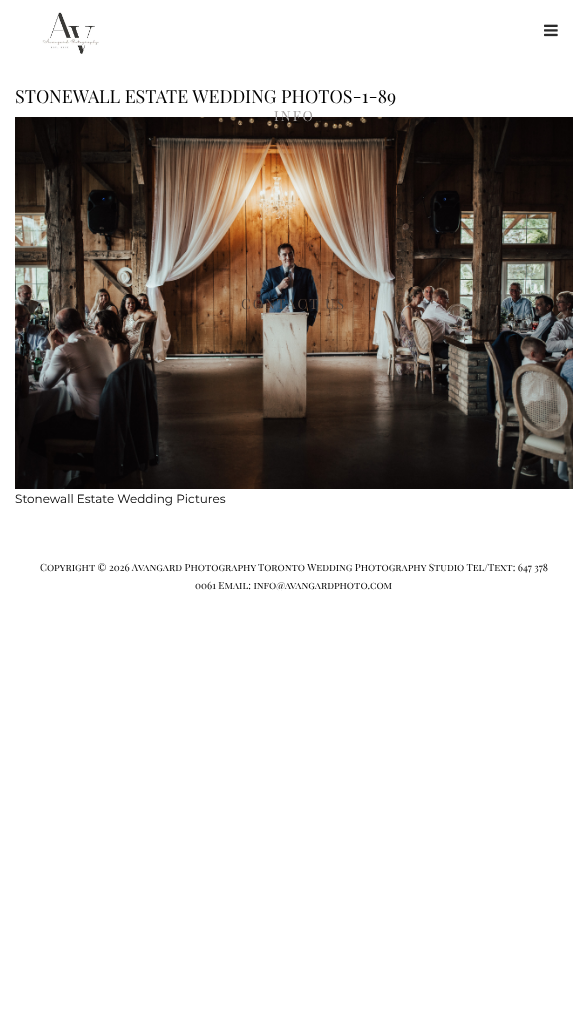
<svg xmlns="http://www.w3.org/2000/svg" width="588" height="1020">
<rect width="100%" height="100%" fill="#fff"/>
<text x="15" y="103" style="font-family:Playfair Display SC;font-size:18px;fill:#000">STONEWALL ESTATE WEDDING PHOTOS-1-89</text>
<image x="15" y="117" width="558" height="372" href="media/1.png"/>
<text x="15" y="503" style="font-family:Montserrat;font-size:12px;font-weight:100;fill:#000">Stonewall Estate Wedding Pictures</text>
<text x="40" y="571" style="font-family:Playfair Display SC;font-size:10px;fill:#000">Copyright © 2026 Avangard Photography Toronto Wedding Photography Studio Tel/Text: 647 378</text>
<text x="195" y="589" style="font-family:Playfair Display SC;font-size:10px;fill:#000">0061 Email: info@avangardphoto.com</text>
<image x="42" y="12" width="57" height="42" href="media/2.png"/>
<image x="544" y="24" width="14" height="13" href="media/3.png"/>
<text x="274" y="121" style="font-family:Playfair Display SC;font-size:14px;letter-spacing:2px;fill:#a4a09f">INFO</text>
<text x="241" y="309" style="font-family:Playfair Display SC;font-size:14px;letter-spacing:2px;fill:#57473e">CONTACT US</text>
</svg>
